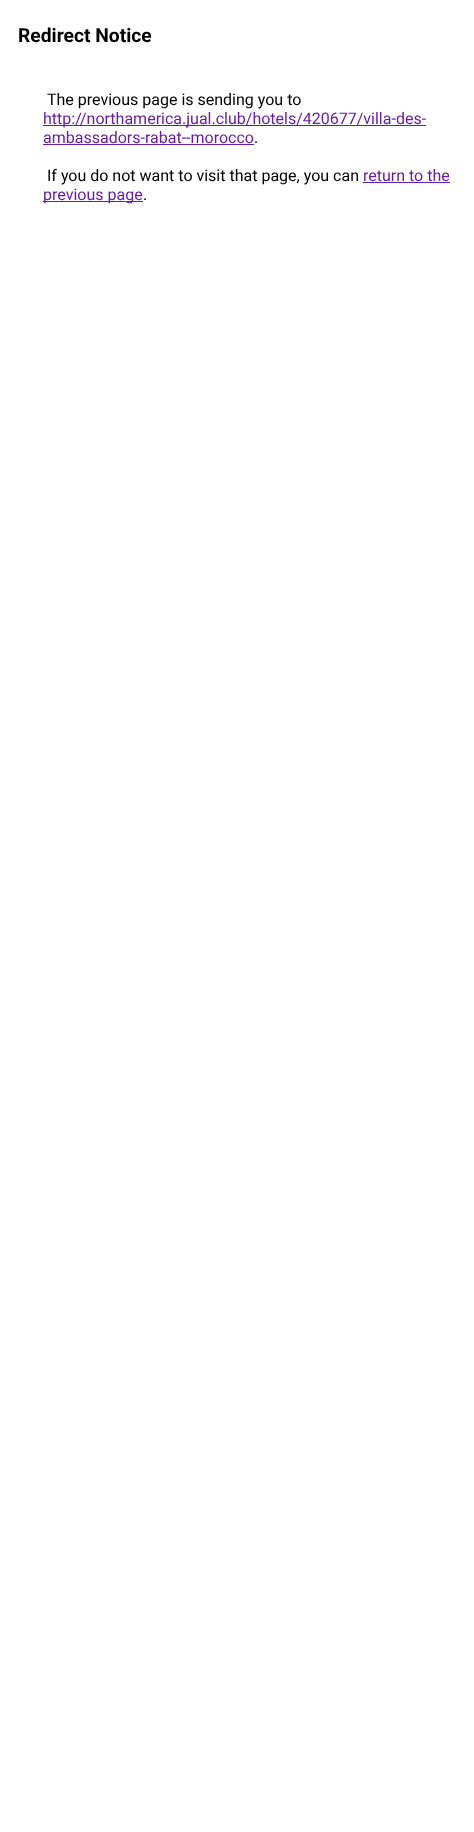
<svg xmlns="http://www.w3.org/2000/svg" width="474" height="1832">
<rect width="100%" height="100%" fill="#fff"/>
<text x="18" y="42" style="font-family:Roboto;font-size:19.25px;font-weight:bold;fill:#000">Redirect Notice</text>
<text x="47" y="105" style="font-family:Roboto;font-size:16px;fill:#000">The previous page is sending you to</text>
<rect x="43" y="125" width="383" height="1" fill="#681da8"/>
<text x="43" y="124" style="font-family:Roboto;font-size:16px;fill:#681da8">http://northamerica.jual.club/hotels/420677/villa-des-</text>
<text x="43" y="143" style="font-family:Roboto;font-size:16px;fill:#681da8">ambassadors-rabat--morocco</text>
<rect x="43" y="144" width="211" height="1" fill="#681da8"/>
<text x="254" y="143" style="font-family:Roboto;font-size:16px;fill:#000">.</text>
<text x="47" y="181" style="font-family:Roboto;font-size:16px;fill:#000">If you do not want to visit that page, you can</text>
<text x="363" y="181" style="font-family:Roboto;font-size:16px;fill:#681da8">return to the</text>
<rect x="363" y="182" width="87" height="1" fill="#681da8"/>
<rect x="43" y="201" width="100" height="1" fill="#681da8"/>
<text x="43" y="200" style="font-family:Roboto;font-size:16px;fill:#681da8">previous page</text>
<text x="143" y="200" style="font-family:Roboto;font-size:16px;fill:#000">.</text>
</svg>
